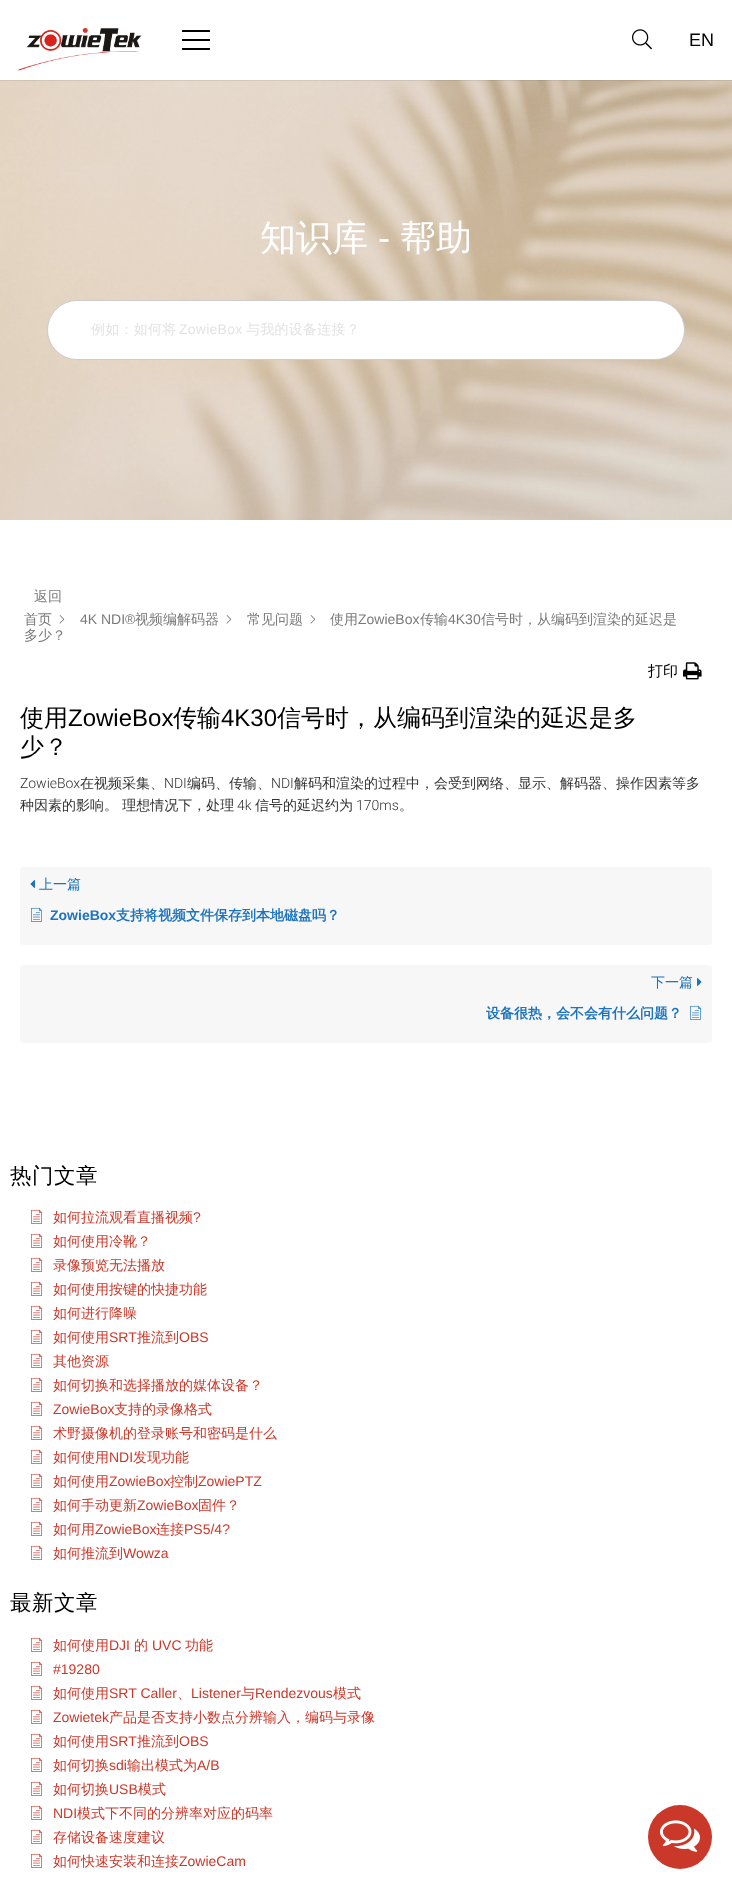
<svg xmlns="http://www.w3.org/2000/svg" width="732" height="1879">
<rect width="100%" height="100%" fill="#fff"/>
<image x="0" y="80" width="732" height="440" href="media/3.png"/>
<rect y="80" width="732" height="1" fill="#00000014"/>
<image x="18" y="28" width="124" height="43" href="media/1.png"/>
<rect x="182" y="39" width="28" height="2" fill="#000"/>
<rect x="182" y="30" width="28" height="2" fill="#000"/>
<rect x="182" y="48" width="28" height="2" fill="#000"/>
<image x="632" y="29" width="20" height="21" href="media/2.png"/>
<text x="689" y="46" style="font-family:Liberation Sans;font-size:18px;fill:#000">EN</text>
<text x="260" y="250" style="font-family:WenQuanYi Zen Hei;font-size:36px;font-weight:500;fill:#fff">知识库</text>
<text x="378" y="250" style="font-family:Liberation Sans;font-size:36px;fill:#fff">-</text>
<text x="400" y="250" style="font-family:WenQuanYi Zen Hei;font-size:36px;font-weight:500;fill:#fff">帮助</text>
<rect x="47.5" y="300.5" width="637" height="59" rx="29.5" fill="#fff" stroke="#ccc"/>
<text x="91" y="334" style="font-family:WenQuanYi Zen Hei;font-size:14px;font-weight:500;letter-spacing:0.25px;fill:#e4e3e3">例如：如何将</text>
<text x="179" y="334" style="font-family:Liberation Sans;font-size:14px;letter-spacing:0.25px;fill:#e4e3e3">ZowieBox</text>
<text x="246" y="334" style="font-family:WenQuanYi Zen Hei;font-size:14px;font-weight:500;letter-spacing:0.25px;fill:#e4e3e3">与我的设备连接？</text>
<text x="34" y="601" style="font-family:WenQuanYi Zen Hei;font-size:14px;font-weight:500;fill:#7a7a7a">返回</text>
<text x="24" y="624" style="font-family:WenQuanYi Zen Hei;font-size:14px;font-weight:500;fill:#7a7a7a">首页</text>
<image x="59" y="615" width="6" height="9" href="media/4.png"/>
<text x="80" y="624" style="font-family:Liberation Sans;font-size:14px;fill:#7a7a7a">4K NDI®</text>
<text x="135" y="624" style="font-family:WenQuanYi Zen Hei;font-size:14px;font-weight:500;fill:#7a7a7a">视频编解码器</text>
<image x="226" y="615" width="6" height="9" href="media/4.png"/>
<text x="247" y="624" style="font-family:WenQuanYi Zen Hei;font-size:14px;font-weight:500;fill:#7a7a7a">常见问题</text>
<image x="310" y="615" width="6" height="9" href="media/4.png"/>
<text x="330" y="624" style="font-family:WenQuanYi Zen Hei;font-size:14px;font-weight:500;fill:#7a7a7a">使用</text>
<text x="358" y="624" style="font-family:Liberation Sans;font-size:14px;fill:#7a7a7a">ZowieBox</text>
<text x="420" y="624" style="font-family:WenQuanYi Zen Hei;font-size:14px;font-weight:500;fill:#7a7a7a">传输</text>
<text x="448" y="624" style="font-family:Liberation Sans;font-size:14px;fill:#7a7a7a">4K30</text>
<text x="481" y="624" style="font-family:WenQuanYi Zen Hei;font-size:14px;font-weight:500;fill:#7a7a7a">信号时，从编码到渲染的延迟是</text>
<text x="24" y="640" style="font-family:WenQuanYi Zen Hei;font-size:14px;font-weight:500;fill:#7a7a7a">多少？</text>
<text x="648" y="676" style="font-family:WenQuanYi Zen Hei;font-size:15px;font-weight:500;fill:#000">打印</text>
<image x="683" y="662" width="19" height="18" href="media/5.png"/>
<text x="20" y="726" style="font-family:WenQuanYi Zen Hei;font-size:24px;font-weight:500;fill:#000">使用</text>
<text x="68" y="726" style="font-family:Liberation Sans;font-size:24px;fill:#000">ZowieBox</text>
<text x="173" y="726" style="font-family:WenQuanYi Zen Hei;font-size:24px;font-weight:500;fill:#000">传输</text>
<text x="221" y="726" style="font-family:Liberation Sans;font-size:24px;fill:#000">4K30</text>
<text x="277" y="726" style="font-family:WenQuanYi Zen Hei;font-size:24px;font-weight:500;fill:#000">信号时，从编码到渲染的延迟是多</text>
<text x="20" y="755" style="font-family:WenQuanYi Zen Hei;font-size:24px;font-weight:500;fill:#000">少？</text>
<text x="20" y="788" style="font-family:Roboto;font-size:14px;font-weight:300;fill:#333">ZowieBox</text>
<text x="80" y="788" style="font-family:WenQuanYi Zen Hei;font-size:14px;font-weight:500;fill:#333">在视频采集、</text>
<text x="164" y="788" style="font-family:Roboto;font-size:14px;font-weight:300;fill:#333">NDI</text>
<text x="187" y="788" style="font-family:WenQuanYi Zen Hei;font-size:14px;font-weight:500;fill:#333">编码、传输、</text>
<text x="271" y="788" style="font-family:Roboto;font-size:14px;font-weight:300;fill:#333">NDI</text>
<text x="294" y="788" style="font-family:WenQuanYi Zen Hei;font-size:14px;font-weight:500;fill:#333">解码和渲染的过程中，会受到网络、显示、解码器、操作因素等多</text>
<text x="20" y="810" style="font-family:WenQuanYi Zen Hei;font-size:14px;font-weight:500;fill:#333">种因素的影响。 理想情况下，处理</text>
<text x="237" y="810" style="font-family:Roboto;font-size:14px;font-weight:300;fill:#333">4k</text>
<text x="255" y="810" style="font-family:WenQuanYi Zen Hei;font-size:14px;font-weight:500;fill:#333">信号的延迟约为</text>
<text x="356" y="810" style="font-family:Roboto;font-size:14px;font-weight:300;fill:#333">170ms</text>
<text x="399" y="810" style="font-family:WenQuanYi Zen Hei;font-size:14px;font-weight:500;fill:#333">。</text>
<rect x="20" y="867" width="692" height="78" rx="3" fill="#f7f7f7"/>
<image x="30" y="880" width="5" height="8" href="media/6.png"/>
<text x="39" y="889" style="font-family:WenQuanYi Zen Hei;font-size:14px;font-weight:500;fill:#1e73be">上一篇</text>
<image x="31" y="907" width="11" height="15" href="media/7.png"/>
<text x="50" y="920" style="font-family:Liberation Sans;font-size:14px;font-weight:bold;fill:#1e73be">ZowieBox</text>
<text x="116" y="920" style="font-family:WenQuanYi Zen Hei;font-size:14px;font-weight:bold;fill:#1e73be">支持将视频文件保存到本地磁盘吗？</text>
<rect x="20" y="965" width="692" height="78" rx="3" fill="#f7f7f7"/>
<text x="651" y="987" style="font-family:WenQuanYi Zen Hei;font-size:14px;font-weight:500;fill:#1e73be">下一篇</text>
<image x="697" y="978" width="5" height="8" href="media/8.png"/>
<text x="486" y="1018" style="font-family:WenQuanYi Zen Hei;font-size:14px;font-weight:bold;fill:#1e73be">设备很热，会不会有什么问题？</text>
<image x="690" y="1005" width="11" height="15" href="media/7.png"/>
<text x="10" y="1183" style="font-family:WenQuanYi Zen Hei;font-size:21.5px;font-weight:500;letter-spacing:0.5px;fill:#000">热门文章</text>
<image x="31" y="1209" width="11" height="15" href="media/9.png"/>
<text x="53" y="1222" style="font-family:WenQuanYi Zen Hei;font-size:14px;font-weight:500;fill:#ca3829">如何拉流观看直播视频</text>
<text x="193" y="1222" style="font-family:Liberation Sans;font-size:14px;fill:#ca3829">?</text>
<image x="31" y="1233" width="11" height="15" href="media/9.png"/>
<text x="53" y="1246" style="font-family:WenQuanYi Zen Hei;font-size:14px;font-weight:500;fill:#ca3829">如何使用冷靴？</text>
<image x="31" y="1257" width="11" height="15" href="media/9.png"/>
<text x="53" y="1270" style="font-family:WenQuanYi Zen Hei;font-size:14px;font-weight:500;fill:#ca3829">录像预览无法播放</text>
<image x="31" y="1281" width="11" height="15" href="media/9.png"/>
<text x="53" y="1294" style="font-family:WenQuanYi Zen Hei;font-size:14px;font-weight:500;fill:#ca3829">如何使用按键的快捷功能</text>
<image x="31" y="1305" width="11" height="15" href="media/9.png"/>
<text x="53" y="1318" style="font-family:WenQuanYi Zen Hei;font-size:14px;font-weight:500;fill:#ca3829">如何进行降噪</text>
<image x="31" y="1329" width="11" height="15" href="media/9.png"/>
<text x="53" y="1342" style="font-family:WenQuanYi Zen Hei;font-size:14px;font-weight:500;fill:#ca3829">如何使用</text>
<text x="109" y="1342" style="font-family:Liberation Sans;font-size:14px;fill:#ca3829">SRT</text>
<text x="137" y="1342" style="font-family:WenQuanYi Zen Hei;font-size:14px;font-weight:500;fill:#ca3829">推流到</text>
<text x="179" y="1342" style="font-family:Liberation Sans;font-size:14px;fill:#ca3829">OBS</text>
<image x="31" y="1353" width="11" height="15" href="media/9.png"/>
<text x="53" y="1366" style="font-family:WenQuanYi Zen Hei;font-size:14px;font-weight:500;fill:#ca3829">其他资源</text>
<image x="31" y="1377" width="11" height="15" href="media/9.png"/>
<text x="53" y="1390" style="font-family:WenQuanYi Zen Hei;font-size:14px;font-weight:500;fill:#ca3829">如何切换和选择播放的媒体设备？</text>
<image x="31" y="1401" width="11" height="15" href="media/9.png"/>
<text x="53" y="1414" style="font-family:Liberation Sans;font-size:14px;fill:#ca3829">ZowieBox</text>
<text x="114" y="1414" style="font-family:WenQuanYi Zen Hei;font-size:14px;font-weight:500;fill:#ca3829">支持的录像格式</text>
<image x="31" y="1425" width="11" height="15" href="media/9.png"/>
<text x="53" y="1438" style="font-family:WenQuanYi Zen Hei;font-size:14px;font-weight:500;fill:#ca3829">术野摄像机的登录账号和密码是什么</text>
<image x="31" y="1449" width="11" height="15" href="media/9.png"/>
<text x="53" y="1462" style="font-family:WenQuanYi Zen Hei;font-size:14px;font-weight:500;fill:#ca3829">如何使用</text>
<text x="109" y="1462" style="font-family:Liberation Sans;font-size:14px;fill:#ca3829">NDI</text>
<text x="133" y="1462" style="font-family:WenQuanYi Zen Hei;font-size:14px;font-weight:500;fill:#ca3829">发现功能</text>
<image x="31" y="1473" width="11" height="15" href="media/9.png"/>
<text x="53" y="1486" style="font-family:WenQuanYi Zen Hei;font-size:14px;font-weight:500;fill:#ca3829">如何使用</text>
<text x="109" y="1486" style="font-family:Liberation Sans;font-size:14px;fill:#ca3829">ZowieBox</text>
<text x="170" y="1486" style="font-family:WenQuanYi Zen Hei;font-size:14px;font-weight:500;fill:#ca3829">控制</text>
<text x="198" y="1486" style="font-family:Liberation Sans;font-size:14px;fill:#ca3829">ZowiePTZ</text>
<image x="31" y="1497" width="11" height="15" href="media/9.png"/>
<text x="53" y="1510" style="font-family:WenQuanYi Zen Hei;font-size:14px;font-weight:500;fill:#ca3829">如何手动更新</text>
<text x="137" y="1510" style="font-family:Liberation Sans;font-size:14px;fill:#ca3829">ZowieBox</text>
<text x="198" y="1510" style="font-family:WenQuanYi Zen Hei;font-size:14px;font-weight:500;fill:#ca3829">固件？</text>
<image x="31" y="1521" width="11" height="15" href="media/9.png"/>
<text x="53" y="1534" style="font-family:WenQuanYi Zen Hei;font-size:14px;font-weight:500;fill:#ca3829">如何用</text>
<text x="95" y="1534" style="font-family:Liberation Sans;font-size:14px;fill:#ca3829">ZowieBox</text>
<text x="156" y="1534" style="font-family:WenQuanYi Zen Hei;font-size:14px;font-weight:500;fill:#ca3829">连接</text>
<text x="184" y="1534" style="font-family:Liberation Sans;font-size:14px;fill:#ca3829">PS5/4?</text>
<image x="31" y="1545" width="11" height="15" href="media/9.png"/>
<text x="53" y="1558" style="font-family:WenQuanYi Zen Hei;font-size:14px;font-weight:500;fill:#ca3829">如何推流到</text>
<text x="123" y="1558" style="font-family:Liberation Sans;font-size:14px;fill:#ca3829">Wowza</text>
<text x="10" y="1610" style="font-family:WenQuanYi Zen Hei;font-size:21.5px;font-weight:500;letter-spacing:0.5px;fill:#000">最新文章</text>
<image x="31" y="1637" width="11" height="15" href="media/9.png"/>
<text x="53" y="1650" style="font-family:WenQuanYi Zen Hei;font-size:14px;font-weight:500;fill:#ca3829">如何使用</text>
<text x="109" y="1650" style="font-family:Liberation Sans;font-size:14px;fill:#ca3829">DJI</text>
<text x="134" y="1650" style="font-family:WenQuanYi Zen Hei;font-size:14px;font-weight:500;fill:#ca3829">的</text>
<text x="152" y="1650" style="font-family:Liberation Sans;font-size:14px;fill:#ca3829">UVC</text>
<text x="185" y="1650" style="font-family:WenQuanYi Zen Hei;font-size:14px;font-weight:500;fill:#ca3829">功能</text>
<image x="31" y="1661" width="11" height="15" href="media/9.png"/>
<text x="53" y="1674" style="font-family:Liberation Sans;font-size:14px;fill:#ca3829">#19280</text>
<image x="31" y="1685" width="11" height="15" href="media/9.png"/>
<text x="53" y="1698" style="font-family:WenQuanYi Zen Hei;font-size:14px;font-weight:500;fill:#ca3829">如何使用</text>
<text x="109" y="1698" style="font-family:Liberation Sans;font-size:14px;fill:#ca3829">SRT Caller</text>
<text x="177" y="1698" style="font-family:WenQuanYi Zen Hei;font-size:14px;font-weight:500;fill:#ca3829">、</text>
<text x="191" y="1698" style="font-family:Liberation Sans;font-size:14px;fill:#ca3829">Listener</text>
<text x="241" y="1698" style="font-family:WenQuanYi Zen Hei;font-size:14px;font-weight:500;fill:#ca3829">与</text>
<text x="255" y="1698" style="font-family:Liberation Sans;font-size:14px;fill:#ca3829">Rendezvous</text>
<text x="333" y="1698" style="font-family:WenQuanYi Zen Hei;font-size:14px;font-weight:500;fill:#ca3829">模式</text>
<image x="31" y="1709" width="11" height="15" href="media/9.png"/>
<text x="53" y="1722" style="font-family:Liberation Sans;font-size:14px;fill:#ca3829">Zowietek</text>
<text x="109" y="1722" style="font-family:WenQuanYi Zen Hei;font-size:14px;font-weight:500;fill:#ca3829">产品是否支持小数点分辨输入，编码与录像</text>
<image x="31" y="1733" width="11" height="15" href="media/9.png"/>
<text x="53" y="1746" style="font-family:WenQuanYi Zen Hei;font-size:14px;font-weight:500;fill:#ca3829">如何使用</text>
<text x="109" y="1746" style="font-family:Liberation Sans;font-size:14px;fill:#ca3829">SRT</text>
<text x="137" y="1746" style="font-family:WenQuanYi Zen Hei;font-size:14px;font-weight:500;fill:#ca3829">推流到</text>
<text x="179" y="1746" style="font-family:Liberation Sans;font-size:14px;fill:#ca3829">OBS</text>
<image x="31" y="1757" width="11" height="15" href="media/9.png"/>
<text x="53" y="1770" style="font-family:WenQuanYi Zen Hei;font-size:14px;font-weight:500;fill:#ca3829">如何切换</text>
<text x="109" y="1770" style="font-family:Liberation Sans;font-size:14px;fill:#ca3829">sdi</text>
<text x="127" y="1770" style="font-family:WenQuanYi Zen Hei;font-size:14px;font-weight:500;fill:#ca3829">输出模式为</text>
<text x="197" y="1770" style="font-family:Liberation Sans;font-size:14px;fill:#ca3829">A/B</text>
<image x="31" y="1781" width="11" height="15" href="media/9.png"/>
<text x="53" y="1794" style="font-family:WenQuanYi Zen Hei;font-size:14px;font-weight:500;fill:#ca3829">如何切换</text>
<text x="109" y="1794" style="font-family:Liberation Sans;font-size:14px;fill:#ca3829">USB</text>
<text x="138" y="1794" style="font-family:WenQuanYi Zen Hei;font-size:14px;font-weight:500;fill:#ca3829">模式</text>
<image x="31" y="1805" width="11" height="15" href="media/9.png"/>
<text x="53" y="1818" style="font-family:Liberation Sans;font-size:14px;fill:#ca3829">NDI</text>
<text x="77" y="1818" style="font-family:WenQuanYi Zen Hei;font-size:14px;font-weight:500;fill:#ca3829">模式下不同的分辨率对应的码率</text>
<image x="31" y="1829" width="11" height="15" href="media/9.png"/>
<text x="53" y="1842" style="font-family:WenQuanYi Zen Hei;font-size:14px;font-weight:500;fill:#ca3829">存储设备速度建议</text>
<image x="31" y="1853" width="11" height="15" href="media/9.png"/>
<text x="53" y="1866" style="font-family:WenQuanYi Zen Hei;font-size:14px;font-weight:500;fill:#ca3829">如何快速安装和连接</text>
<text x="179" y="1866" style="font-family:Liberation Sans;font-size:14px;fill:#ca3829">ZowieCam</text>
<circle cx="680" cy="1837" r="32" fill="#ca3829"/>
<image x="660" y="1820" width="40" height="32" href="media/10.png"/>
</svg>
